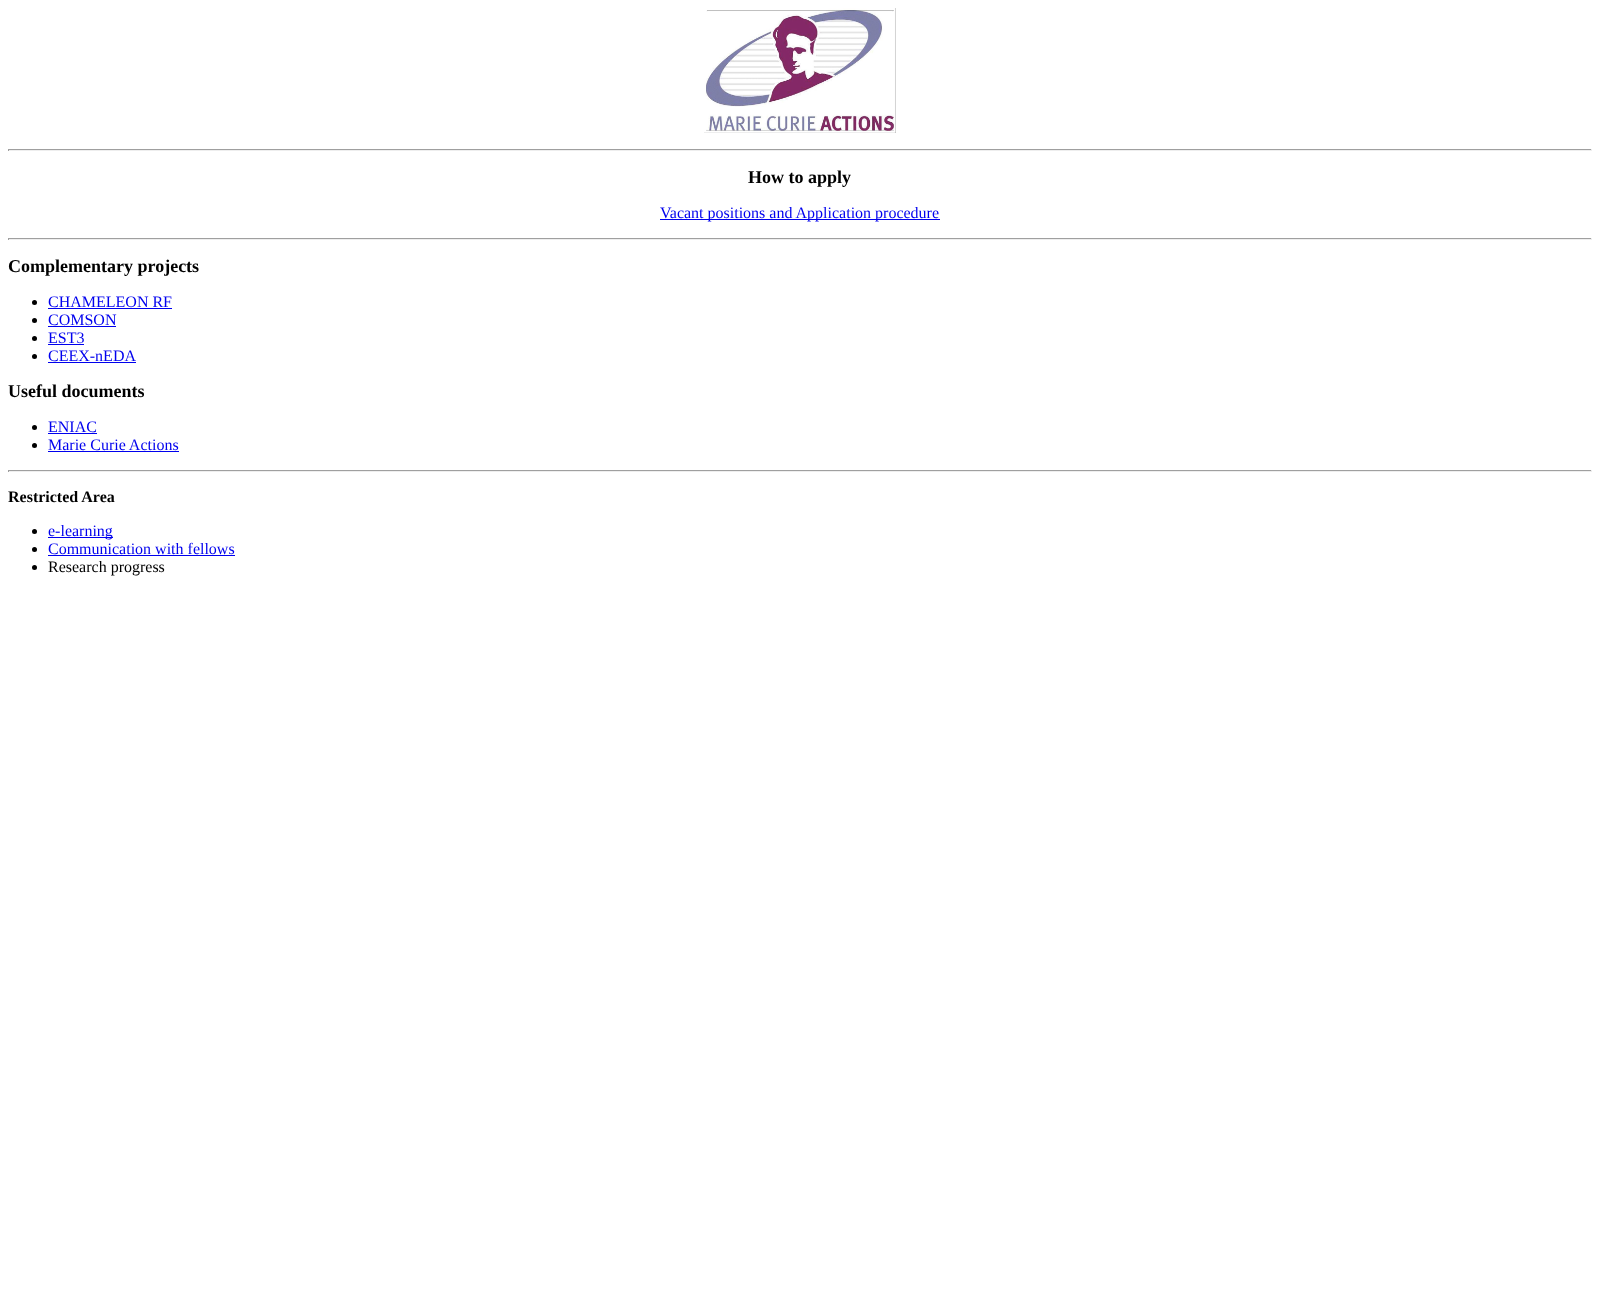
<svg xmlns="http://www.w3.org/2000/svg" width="1600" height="1315">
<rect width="100%" height="100%" fill="#fff"/>
<image x="704" y="8" width="192" height="125" href="media/1.png"/>
<rect x="8" y="149" width="1584" height="1" fill="#9f9f9f"/>
<rect x="1591" y="149" width="1" height="2" fill="#eee"/>
<rect x="8" y="150" width="1584" height="1" fill="#eee"/>
<rect x="8" y="149" width="1" height="2" fill="#9f9f9f"/>
<text x="748" y="183" style="font-family:Liberation Serif;font-size:18px;font-weight:bold;fill:#000">How to apply</text>
<rect x="660" y="219" width="280" height="1" fill="#00e"/>
<text x="660" y="218" style="font-family:Liberation Serif;font-size:16px;fill:#00e">Vacant positions and Application procedure</text>
<rect x="8" y="238" width="1584" height="1" fill="#9f9f9f"/>
<rect x="1591" y="238" width="1" height="2" fill="#eee"/>
<rect x="8" y="239" width="1584" height="1" fill="#eee"/>
<rect x="8" y="238" width="1" height="2" fill="#9f9f9f"/>
<text x="8" y="272" style="font-family:Liberation Serif;font-size:18px;font-weight:bold;fill:#000">Complementary projects</text>
<circle cx="34.5" cy="302.5" r="2.5" fill="#000"/>
<text x="48" y="307" style="font-family:Liberation Serif;font-size:16px;fill:#00e">CHAMELEON RF</text>
<rect x="48" y="308" width="124" height="1" fill="#00e"/>
<circle cx="34.5" cy="320.5" r="2.5" fill="#000"/>
<text x="48" y="325" style="font-family:Liberation Serif;font-size:16px;fill:#00e">COMSON</text>
<rect x="48" y="326" width="68" height="1" fill="#00e"/>
<circle cx="34.5" cy="338.5" r="2.5" fill="#000"/>
<text x="48" y="343" style="font-family:Liberation Serif;font-size:16px;fill:#00e">EST3</text>
<rect x="48" y="344" width="36" height="1" fill="#00e"/>
<circle cx="34.5" cy="356.5" r="2.5" fill="#000"/>
<text x="48" y="361" style="font-family:Liberation Serif;font-size:16px;fill:#00e">CEEX-nEDA</text>
<rect x="48" y="362" width="88" height="1" fill="#00e"/>
<text x="8" y="397" style="font-family:Liberation Serif;font-size:18px;font-weight:bold;fill:#000">Useful documents</text>
<circle cx="34.5" cy="427.5" r="2.5" fill="#000"/>
<text x="48" y="432" style="font-family:Liberation Serif;font-size:16px;fill:#00e">ENIAC</text>
<rect x="48" y="433" width="49" height="1" fill="#00e"/>
<circle cx="34.5" cy="445.5" r="2.5" fill="#000"/>
<text x="48" y="450" style="font-family:Liberation Serif;font-size:16px;fill:#00e">Marie Curie Actions</text>
<rect x="48" y="451" width="131" height="1" fill="#00e"/>
<rect x="8" y="470" width="1584" height="1" fill="#9f9f9f"/>
<rect x="1591" y="470" width="1" height="2" fill="#eee"/>
<rect x="8" y="471" width="1584" height="1" fill="#eee"/>
<rect x="8" y="470" width="1" height="2" fill="#9f9f9f"/>
<text x="8" y="502" style="font-family:Liberation Serif;font-size:16px;font-weight:bold;fill:#000">Restricted Area</text>
<circle cx="34.5" cy="531.5" r="2.5" fill="#000"/>
<rect x="48" y="537" width="65" height="1" fill="#00e"/>
<text x="48" y="536" style="font-family:Liberation Serif;font-size:16px;fill:#00e">e-learning</text>
<circle cx="34.5" cy="549.5" r="2.5" fill="#000"/>
<text x="48" y="554" style="font-family:Liberation Serif;font-size:16px;fill:#00e">Communication with fellows</text>
<rect x="48" y="555" width="187" height="1" fill="#00e"/>
<circle cx="34.5" cy="567.5" r="2.5" fill="#000"/>
<text x="48" y="572" style="font-family:Liberation Serif;font-size:16px;fill:#000">Research progress</text>
</svg>
